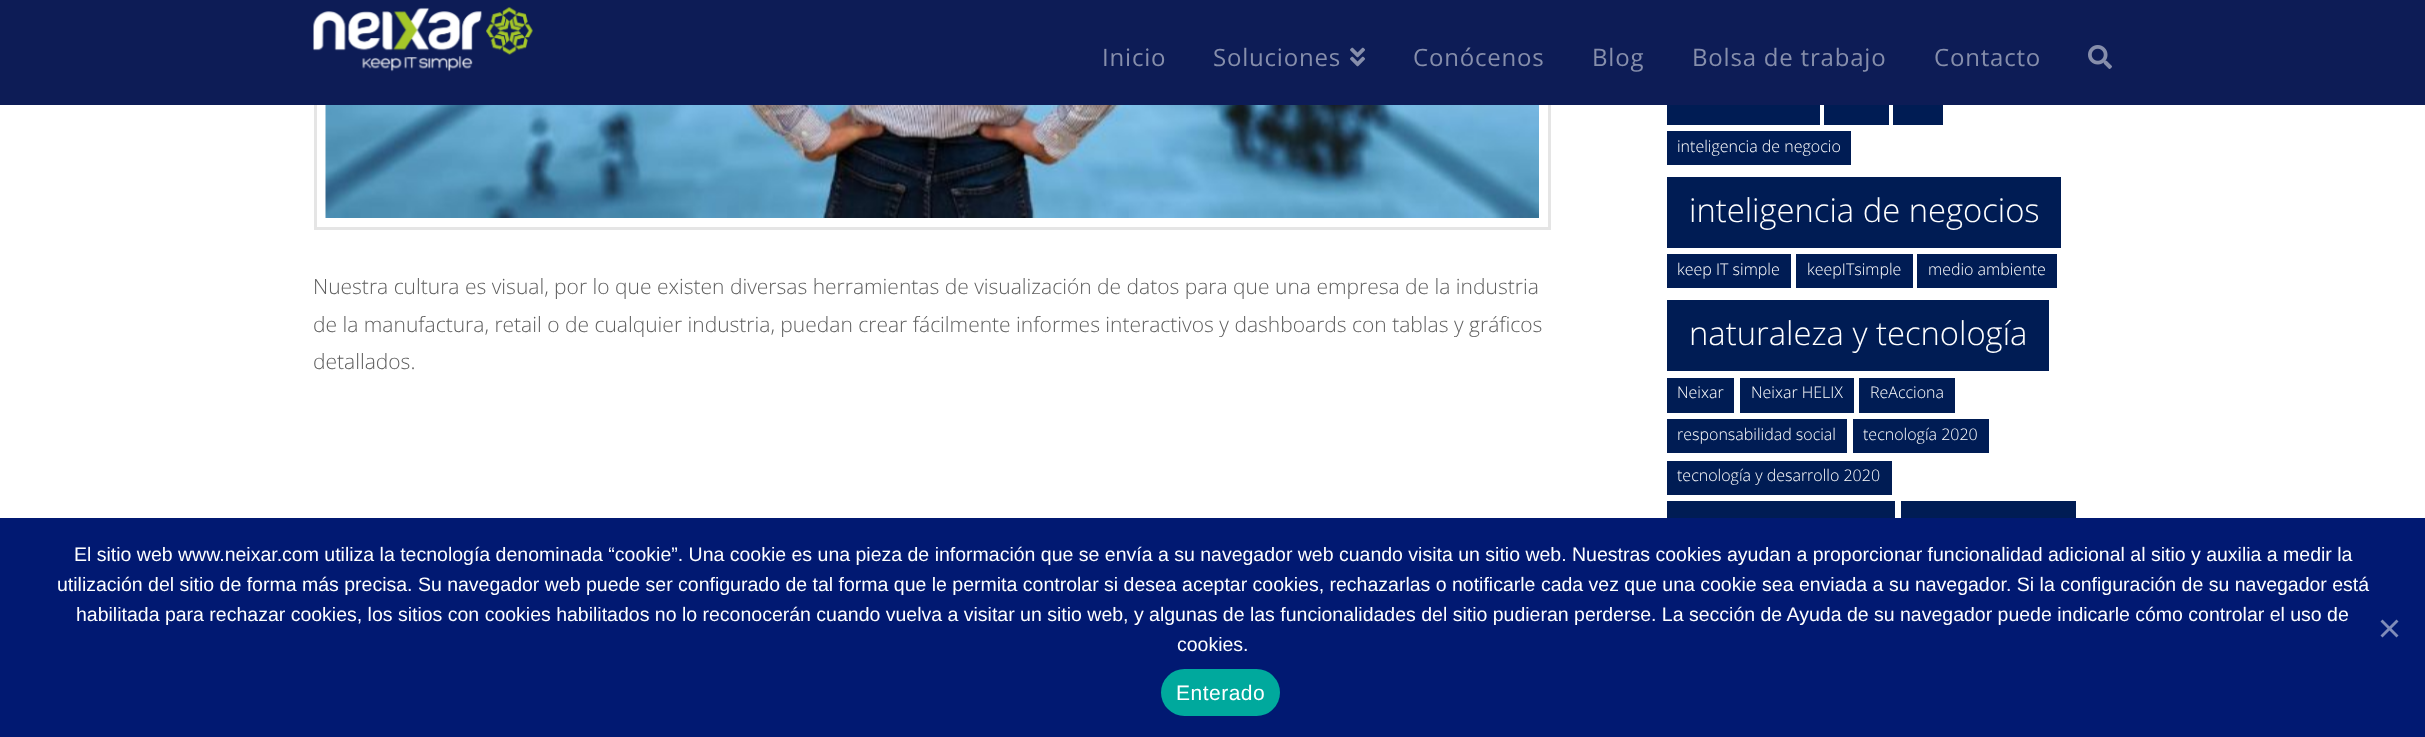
<svg xmlns="http://www.w3.org/2000/svg" width="2425" height="737">
<rect width="100%" height="100%" fill="#fff"/>
<rect x="315.5" y="-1.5" width="1234" height="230" fill="none" stroke="#e5e5e5" stroke-width="3"/>
<rect width="2425" height="105" fill="#0d1c56"/>
<image x="313" y="7" width="220" height="65" href="media/1.png"/>
<text x="1102" y="66" style="font-family:Open Sans;font-size:24px;letter-spacing:0.8px;fill:#868eab">Inicio</text>
<text x="1213" y="66" style="font-family:Open Sans;font-size:24px;letter-spacing:0.8px;fill:#868eab">Soluciones</text>
<image x="1350" y="47" width="15" height="20" href="media/2.png"/>
<text x="1413" y="66" style="font-family:Open Sans;font-size:24px;letter-spacing:0.8px;fill:#868eab">Conócenos</text>
<text x="1592" y="66" style="font-family:Open Sans;font-size:24px;letter-spacing:0.8px;fill:#868eab">Blog</text>
<text x="1692" y="66" style="font-family:Open Sans;font-size:24px;letter-spacing:0.8px;fill:#868eab">Bolsa de trabajo</text>
<text x="1934" y="66" style="font-family:Open Sans;font-size:24px;letter-spacing:0.8px;fill:#868eab">Contacto</text>
<image x="2088" y="45" width="24" height="24" href="media/3.png"/>
<image x="325" y="105" width="1214" height="113" href="media/4.png"/>
<text x="313" y="294" style="font-family:Open Sans;font-size:21px;font-weight:300;fill:#5e5e5e">Nuestra cultura es visual, por lo que existen diversas herramientas de visualización de datos para que una empresa de la industria</text>
<text x="313" y="332" style="font-family:Open Sans;font-size:21px;font-weight:300;fill:#5e5e5e">de la manufactura, retail o de cualquier industria, puedan crear fácilmente informes interactivos y dashboards con tablas y gráficos</text>
<text x="313" y="369" style="font-family:Open Sans;font-size:21px;font-weight:300;fill:#5e5e5e">detallados.</text>
<rect x="1667" y="105" width="153" height="20" fill="#001c54"/>
<rect x="1824" y="105" width="65" height="20" fill="#001c54"/>
<rect x="1893" y="105" width="50" height="20" fill="#001c54"/>
<rect x="1667" y="131" width="184" height="34" fill="#001c54"/>
<text x="1677" y="152" style="font-family:Open Sans;font-size:16px;font-weight:300;fill:#fff">inteligencia de negocio</text>
<rect x="1667" y="177" width="394" height="71" fill="#001c54"/>
<text x="1689" y="222" style="font-family:Open Sans;font-size:32.75px;font-weight:300;fill:#fff">inteligencia de negocios</text>
<rect x="1667" y="254" width="124" height="34" fill="#001c54"/>
<text x="1677" y="275" style="font-family:Open Sans;font-size:16px;font-weight:300;fill:#fff">keep IT simple</text>
<rect x="1796" y="254" width="117" height="34" fill="#001c54"/>
<text x="1807" y="275" style="font-family:Open Sans;font-size:16px;font-weight:300;fill:#fff">keepITsimple</text>
<rect x="1917" y="254" width="140" height="34" fill="#001c54"/>
<text x="1928" y="275" style="font-family:Open Sans;font-size:16px;font-weight:300;fill:#fff">medio ambiente</text>
<rect x="1667" y="300" width="382" height="71" fill="#001c54"/>
<text x="1689" y="345" style="font-family:Open Sans;font-size:32.75px;font-weight:300;fill:#fff">naturaleza y tecnología</text>
<rect x="1667" y="378" width="67" height="35" fill="#001c54"/>
<text x="1677" y="398" style="font-family:Open Sans;font-size:16px;font-weight:300;fill:#fff">Neixar</text>
<rect x="1740" y="378" width="114" height="35" fill="#001c54"/>
<text x="1751" y="398" style="font-family:Open Sans;font-size:16px;font-weight:300;fill:#fff">Neixar HELIX</text>
<rect x="1859" y="378" width="96" height="35" fill="#001c54"/>
<text x="1870" y="398" style="font-family:Open Sans;font-size:16px;font-weight:300;fill:#fff">ReAcciona</text>
<rect x="1667" y="419" width="180" height="34" fill="#001c54"/>
<text x="1677" y="440" style="font-family:Open Sans;font-size:16px;font-weight:300;fill:#fff">responsabilidad social</text>
<rect x="1853" y="419" width="136" height="34" fill="#001c54"/>
<text x="1863" y="440" style="font-family:Open Sans;font-size:16px;font-weight:300;fill:#fff">tecnología 2020</text>
<rect x="1667" y="461" width="225" height="34" fill="#001c54"/>
<text x="1677" y="481" style="font-family:Open Sans;font-size:16px;font-weight:300;fill:#fff">tecnología y desarrollo 2020</text>
<rect x="1667" y="501" width="228" height="17" fill="#001c54"/>
<rect x="1901" y="501" width="175" height="17" fill="#001c54"/>
<rect y="518" width="2425" height="219" fill="#011972"/>
<text x="74" y="561" style="font-family:Liberation Sans;font-size:19.5px;fill:#fff">El sitio web www.neixar.com utiliza la tecnología denominada “cookie”. Una cookie es una pieza de información que se envía a su navegador web cuando visita un sitio web. Nuestras cookies ayudan a proporcionar funcionalidad adicional al sitio y auxilia a medir la</text>
<text x="57" y="591" style="font-family:Liberation Sans;font-size:19.5px;fill:#fff">utilización del sitio de forma más precisa. Su navegador web puede ser configurado de tal forma que le permita controlar si desea aceptar cookies, rechazarlas o notificarle cada vez que una cookie sea enviada a su navegador. Si la configuración de su navegador está</text>
<text x="76" y="621" style="font-family:Liberation Sans;font-size:19.5px;fill:#fff">habilitada para rechazar cookies, los sitios con cookies habilitados no lo reconocerán cuando vuelva a visitar un sitio web, y algunas de las funcionalidades del sitio pudieran perderse. La sección de Ayuda de su navegador puede indicarle cómo controlar el uso de</text>
<text x="1177" y="651" style="font-family:Liberation Sans;font-size:19.5px;fill:#fff">cookies.</text>
<path d="M2396.5 619.5l2 2l-16 16l-2-2z" fill="#808cb9"/>
<path d="M2380.5 621.5l2-2l16 16l-2 2z" fill="#808cb9"/>
<rect x="1161" y="669" width="119" height="47" rx="23.5" fill="#00a99d"/>
<text x="1176" y="700" style="font-family:Liberation Sans;font-size:21px;letter-spacing:0.5px;fill:#fff">Enterado</text>
</svg>
